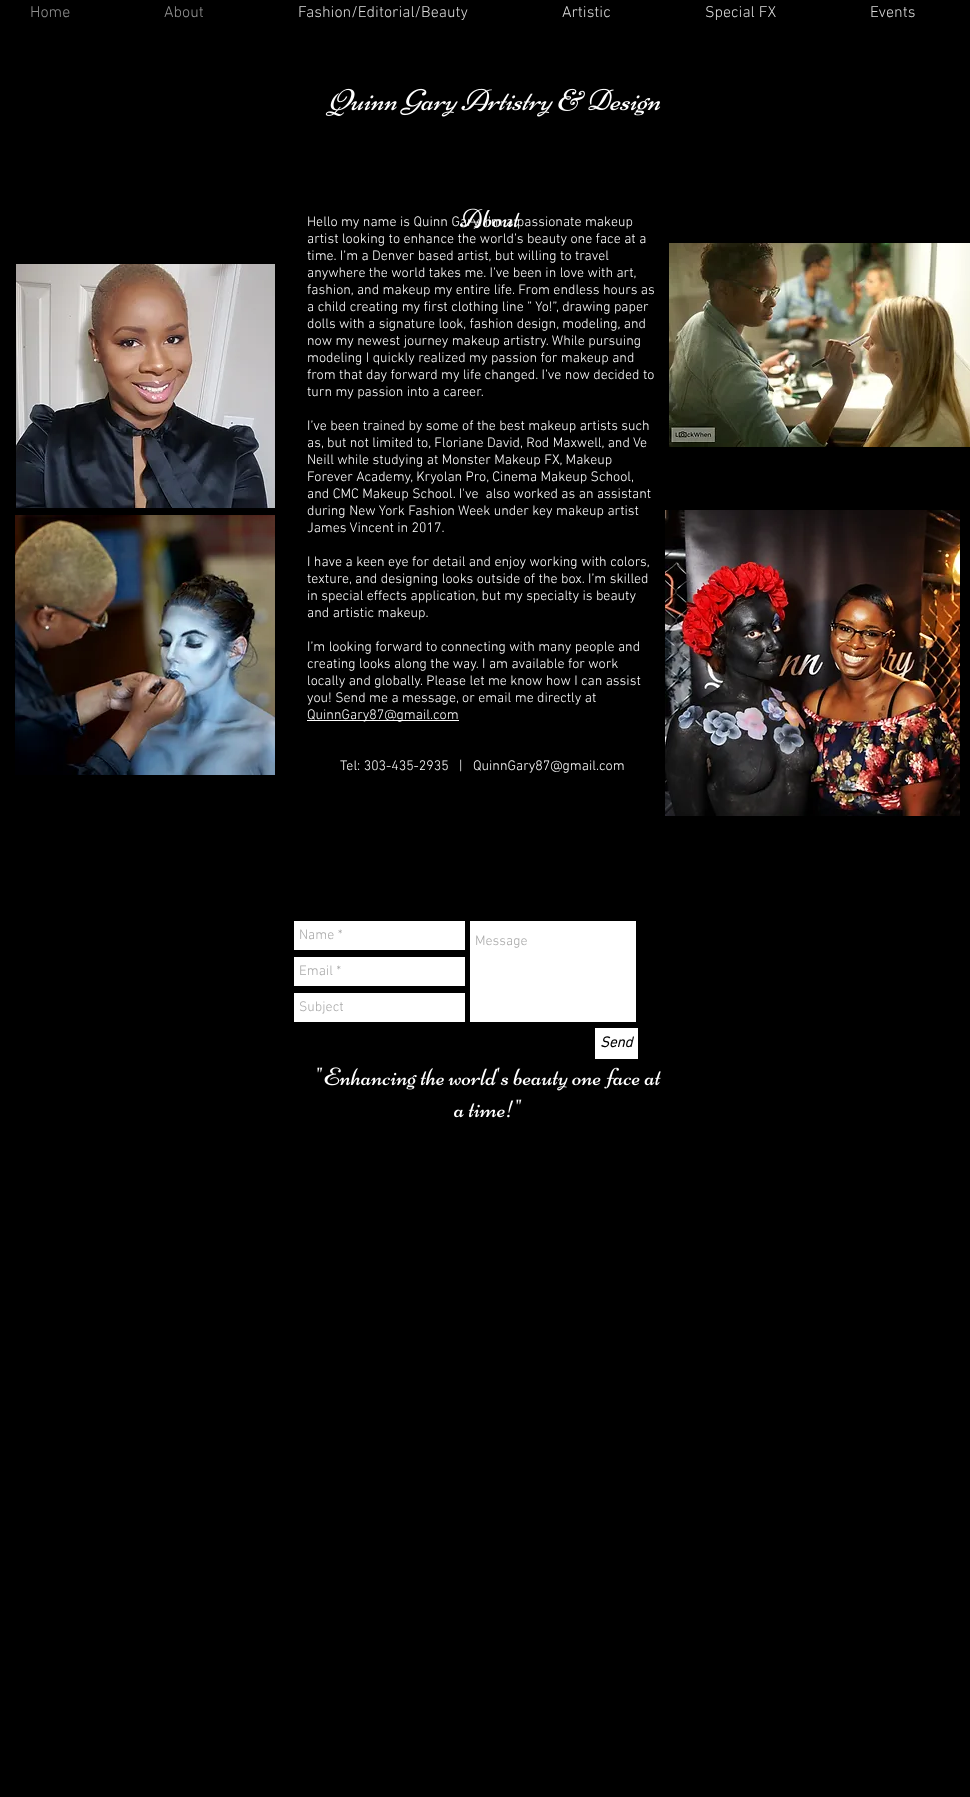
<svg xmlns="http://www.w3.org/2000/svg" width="970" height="1797">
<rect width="100%" height="100%" fill="#000"/>
<text x="30" y="17" style="font-family:'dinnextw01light';font-size:16px;font-weight:300;fill:#929292">Home</text>
<text x="164" y="17" style="font-family:'dinnextw01light';font-size:16px;font-weight:300;fill:#929292">About</text>
<text x="298" y="17" style="font-family:'dinnextw01light';font-size:16px;font-weight:300;fill:#d9d9d9">Fashion/Editorial/Beauty</text>
<text x="562" y="17" style="font-family:'dinnextw01light';font-size:16px;font-weight:300;fill:#d9d9d9">Artistic</text>
<text x="705" y="17" style="font-family:'dinnextw01light';font-size:16px;font-weight:300;fill:#d9d9d9">Special FX</text>
<text x="870" y="17" style="font-family:'dinnextw01light';font-size:16px;font-weight:300;fill:#d9d9d9">Events</text>
<image x="325" y="88" width="336" height="29" href="media/1.png"/>
<image x="459" y="208" width="61" height="21" href="media/2.png"/>
<image x="16" y="264" width="259" height="244" href="media/3.png"/>
<text x="307" y="226" style="font-family:'dinnextw01light';font-size:14px;font-weight:300;fill:#fff">Hello my name is Quinn Gary. I’m a passionate makeup</text>
<text x="307" y="243" style="font-family:'dinnextw01light';font-size:14px;font-weight:300;fill:#fff">artist looking to enhance the world’s beauty one face at a</text>
<text x="307" y="260" style="font-family:'dinnextw01light';font-size:14px;font-weight:300;fill:#fff">time. I’m a Denver based artist, but willing to travel</text>
<text x="307" y="277" style="font-family:'dinnextw01light';font-size:14px;font-weight:300;fill:#fff">anywhere the world takes me. I’ve been in love with art,</text>
<text x="307" y="294" style="font-family:'dinnextw01light';font-size:14px;font-weight:300;fill:#fff">fashion, and makeup my entire life. From endless hours as</text>
<text x="307" y="311" style="font-family:'dinnextw01light';font-size:14px;font-weight:300;fill:#fff">a child creating my first clothing line ” Yo!”, drawing paper</text>
<text x="307" y="328" style="font-family:'dinnextw01light';font-size:14px;font-weight:300;fill:#fff">dolls with a signature look, fashion design, modeling, and</text>
<text x="307" y="345" style="font-family:'dinnextw01light';font-size:14px;font-weight:300;fill:#fff">now my newest journey makeup artistry. While pursuing</text>
<text x="307" y="362" style="font-family:'dinnextw01light';font-size:14px;font-weight:300;fill:#fff">modeling I quickly realized my passion for makeup and</text>
<text x="307" y="379" style="font-family:'dinnextw01light';font-size:14px;font-weight:300;fill:#fff">from that day forward my life changed. I’ve now decided to</text>
<text x="307" y="396" style="font-family:'dinnextw01light';font-size:14px;font-weight:300;fill:#fff">turn my passion into a career.</text>
<text x="307" y="430" style="font-family:'dinnextw01light';font-size:14px;font-weight:300;fill:#fff">I’ve been trained by some of the best makeup artists such</text>
<text x="307" y="447" style="font-family:'dinnextw01light';font-size:14px;font-weight:300;fill:#fff">as, but not limited to, Floriane David, Rod Maxwell, and Ve</text>
<text x="307" y="464" style="font-family:'dinnextw01light';font-size:14px;font-weight:300;fill:#fff">Neill while studying at Monster Makeup FX, Makeup</text>
<text x="307" y="481" style="font-family:'dinnextw01light';font-size:14px;font-weight:300;fill:#fff">Forever Academy, Kryolan Pro, Cinema Makeup School,</text>
<text x="307" y="498" style="font-family:'dinnextw01light';font-size:14px;font-weight:300;fill:#fff" xml:space="preserve">and CMC Makeup School. I've  also worked as an assistant</text>
<text x="307" y="515" style="font-family:'dinnextw01light';font-size:14px;font-weight:300;fill:#fff">during New York Fashion Week under key makeup artist</text>
<text x="307" y="532" style="font-family:'dinnextw01light';font-size:14px;font-weight:300;fill:#fff">James Vincent in 2017.</text>
<text x="307" y="566" style="font-family:'dinnextw01light';font-size:14px;font-weight:300;fill:#fff">I have a keen eye for detail and enjoy working with colors,</text>
<text x="307" y="583" style="font-family:'dinnextw01light';font-size:14px;font-weight:300;fill:#fff">texture, and designing looks outside of the box. I’m skilled</text>
<text x="307" y="600" style="font-family:'dinnextw01light';font-size:14px;font-weight:300;fill:#fff">in special effects application, but my specialty is beauty</text>
<text x="307" y="617" style="font-family:'dinnextw01light';font-size:14px;font-weight:300;fill:#fff">and artistic makeup.</text>
<text x="307" y="651" style="font-family:'dinnextw01light';font-size:14px;font-weight:300;fill:#fff">I’m looking forward to connecting with many people and</text>
<text x="307" y="668" style="font-family:'dinnextw01light';font-size:14px;font-weight:300;fill:#fff">creating looks along the way. I am available for work</text>
<text x="307" y="685" style="font-family:'dinnextw01light';font-size:14px;font-weight:300;fill:#fff">locally and globally. Please let me know how I can assist</text>
<text x="307" y="702" style="font-family:'dinnextw01light';font-size:14px;font-weight:300;fill:#fff">you! Send me a message, or email me directly at</text>
<rect x="307" y="720" width="152" height="1" fill="#fff"/>
<text x="307" y="719" style="font-family:'dinnextw01light';font-size:14px;font-weight:300;fill:#fff">QuinnGary87@gmail.com</text>
<text x="340" y="770" style="font-family:'dinnextw01light';font-size:14px;font-weight:300;fill:#fff" xml:space="preserve">Tel: 303-435-2935   |</text>
<text x="473" y="770" style="font-family:'dinnextw01light';font-size:14px;font-weight:300;fill:#fff">QuinnGary87@gmail.com</text>
<image x="669" y="243" width="301" height="204" href="media/4.png"/>
<image x="15" y="515" width="260" height="260" href="media/5.png"/>
<image x="665" y="510" width="295" height="306" href="media/6.png"/>
<rect x="294" y="921" width="171" height="29" fill="#fff"/>
<text x="299" y="939" style="font-family:'dinnextw01light';font-size:14px;font-weight:300;fill:#a9a9a9">Name *</text>
<rect x="470" y="921" width="166" height="101" fill="#fff"/>
<text x="475" y="945" style="font-family:'dinnextw01light';font-size:14px;font-weight:300;fill:#a9a9a9">Message</text>
<rect x="294" y="957" width="171" height="29" fill="#fff"/>
<text x="299" y="975" style="font-family:'dinnextw01light';font-size:14px;font-weight:300;fill:#a9a9a9">Email *</text>
<rect x="294" y="993" width="171" height="29" fill="#fff"/>
<text x="299" y="1011" style="font-family:'dinnextw01light';font-size:14px;font-weight:300;fill:#a9a9a9">Subject</text>
<rect x="595" y="1028" width="43" height="31" fill="#fff"/>
<text x="600" y="1047" style="font-family:'dinnextw01light';font-size:15px;font-weight:bold;font-style:italic;fill:#000">Send</text>
<image x="317" y="1067" width="344" height="24" href="media/7.png"/>
<image x="454" y="1099" width="68" height="19" href="media/8.png"/>
</svg>
